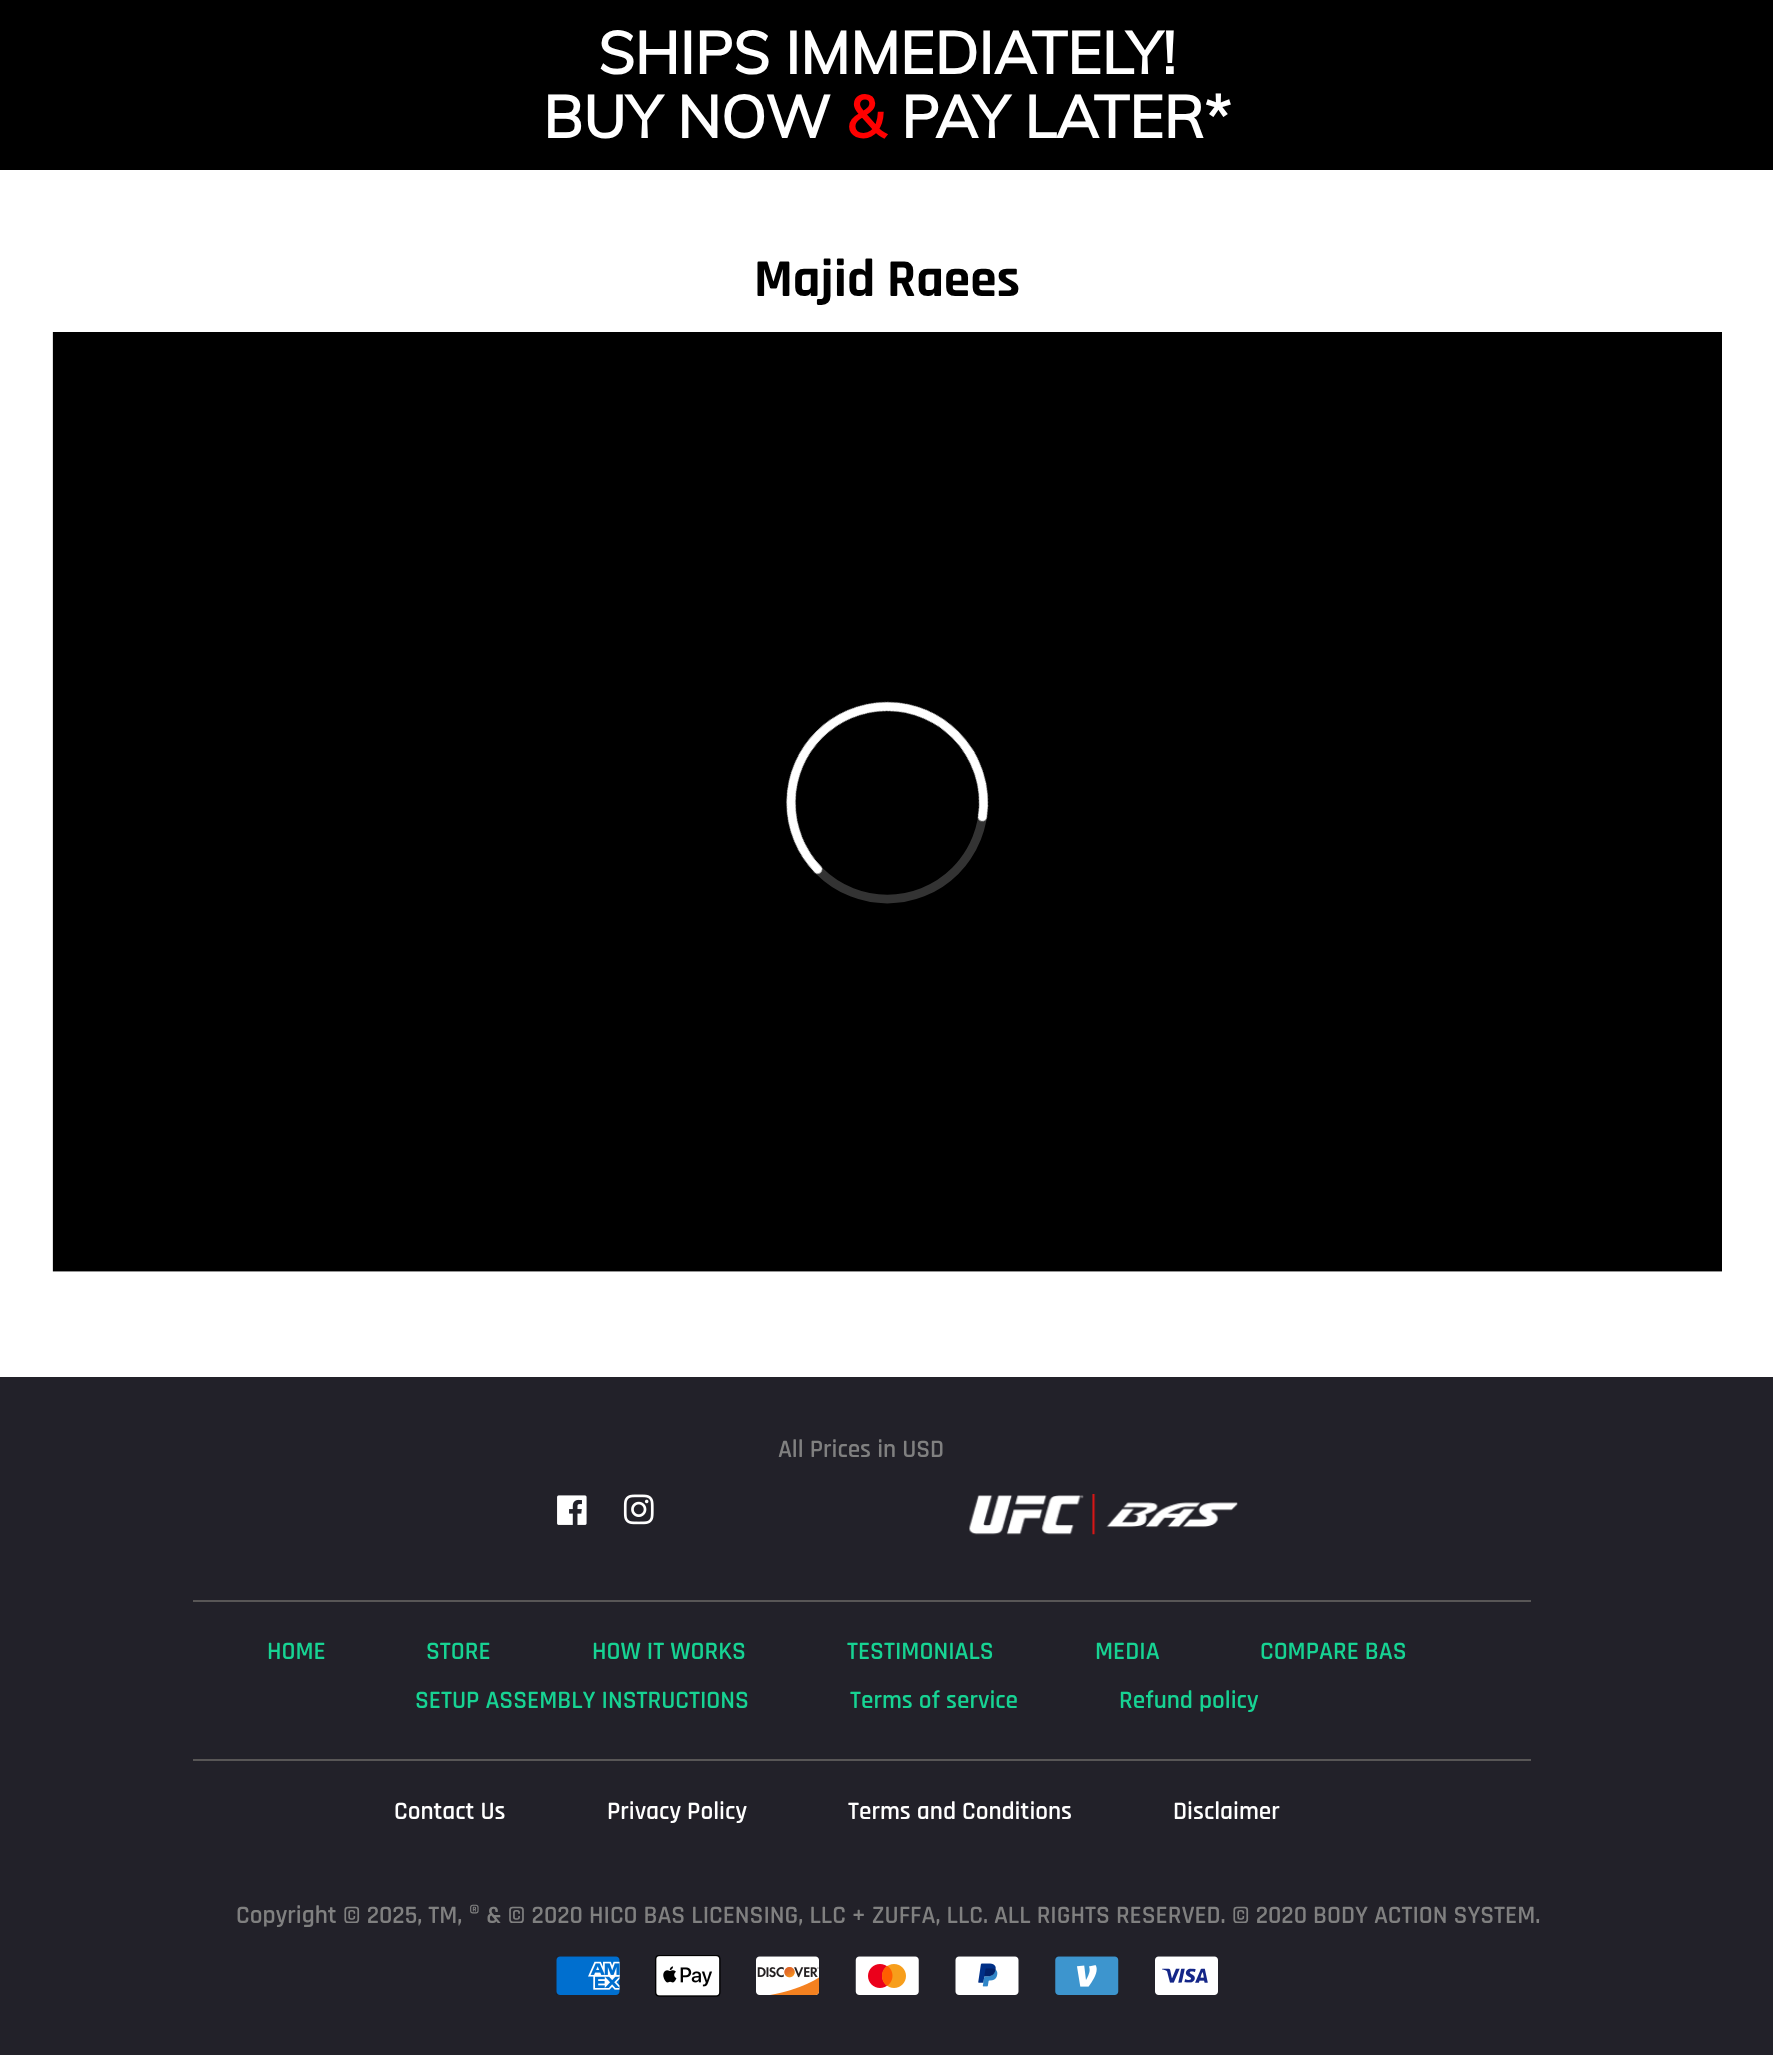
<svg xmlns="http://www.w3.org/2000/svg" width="1773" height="2055">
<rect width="100%" height="100%" fill="#fff"/>
<rect width="1773" height="170" fill="#000"/>
<text x="598" y="74" style="font-family:Muli;font-size:58.75px;font-weight:bold;fill:#fff">SHIPS IMMEDIATELY!</text>
<text x="543" y="138" style="font-family:Muli;font-size:58.75px;font-weight:bold;fill:#fff">BUY NOW</text>
<text x="846" y="138" style="font-family:Muli;font-size:58.75px;font-weight:bold;fill:#f00">&amp;</text>
<text x="901" y="138" style="font-family:Muli;font-size:58.75px;font-weight:bold;fill:#fff">PAY LATER*</text>
<text x="754" y="296" style="font-family:Rajdhani;font-size:53.5px;font-weight:bold;fill:#000">Majid Raees</text>
<image x="52" y="332" width="1670" height="940" href="media/1.png"/>
<rect y="1377" width="1773" height="678" fill="#222129"/>
<text x="778" y="1457" style="font-family:Rajdhani;font-size:25.3px;font-weight:600;fill:#808080">All Prices in USD</text>
<rect x="193" y="1600" width="1338" height="2" fill="#585656"/>
<image x="557" y="1495" width="30" height="30" href="media/2.png"/>
<image x="623" y="1494" width="31" height="31" href="media/3.png"/>
<image x="969" y="1494" width="269" height="41" href="media/4.png"/>
<rect x="193" y="1759" width="1338" height="2" fill="#585656"/>
<text x="267" y="1659" style="font-family:Rajdhani;font-size:25.3px;font-weight:600;fill:#17d393">HOME</text>
<text x="426" y="1659" style="font-family:Rajdhani;font-size:25.3px;font-weight:600;fill:#17d393">STORE</text>
<text x="592" y="1659" style="font-family:Rajdhani;font-size:25.3px;font-weight:600;fill:#17d393">HOW IT WORKS</text>
<text x="847" y="1659" style="font-family:Rajdhani;font-size:25.3px;font-weight:600;fill:#17d393">TESTIMONIALS</text>
<text x="1095" y="1659" style="font-family:Rajdhani;font-size:25.3px;font-weight:600;fill:#17d393">MEDIA</text>
<text x="1260" y="1659" style="font-family:Rajdhani;font-size:25.3px;font-weight:600;fill:#17d393">COMPARE BAS</text>
<text x="415" y="1708" style="font-family:Rajdhani;font-size:25.3px;font-weight:600;fill:#17d393">SETUP ASSEMBLY INSTRUCTIONS</text>
<text x="850" y="1708" style="font-family:Rajdhani;font-size:25.3px;font-weight:600;fill:#17d393">Terms of service</text>
<text x="1119" y="1708" style="font-family:Rajdhani;font-size:25.3px;font-weight:600;fill:#17d393">Refund policy</text>
<text x="394" y="1819" style="font-family:Rajdhani;font-size:25.3px;font-weight:600;fill:#fff">Contact Us</text>
<text x="607" y="1819" style="font-family:Rajdhani;font-size:25.3px;font-weight:600;fill:#fff">Privacy Policy</text>
<text x="848" y="1819" style="font-family:Rajdhani;font-size:25.3px;font-weight:600;fill:#fff">Terms and Conditions</text>
<text x="1173" y="1819" style="font-family:Rajdhani;font-size:25.3px;font-weight:600;fill:#fff">Disclaimer</text>
<text x="236" y="1923" style="font-family:Rajdhani;font-size:25.3px;font-weight:600;fill:#808080">Copyright © 2025, TM, ® &amp; © 2020 HICO BAS LICENSING, LLC + ZUFFA, LLC. ALL RIGHTS RESERVED. © 2020 BODY ACTION SYSTEM.</text>
<image x="556" y="1956" width="64" height="39" href="media/5.png"/>
<image x="655" y="1955" width="66" height="42" href="media/6.png"/>
<image x="756" y="1956" width="64" height="39" href="media/7.png"/>
<image x="855" y="1956" width="64" height="39" href="media/8.png"/>
<image x="955" y="1956" width="64" height="39" href="media/9.png"/>
<image x="1055" y="1956" width="64" height="39" href="media/10.png"/>
<image x="1155" y="1956" width="63" height="39" href="media/11.png"/>
</svg>
